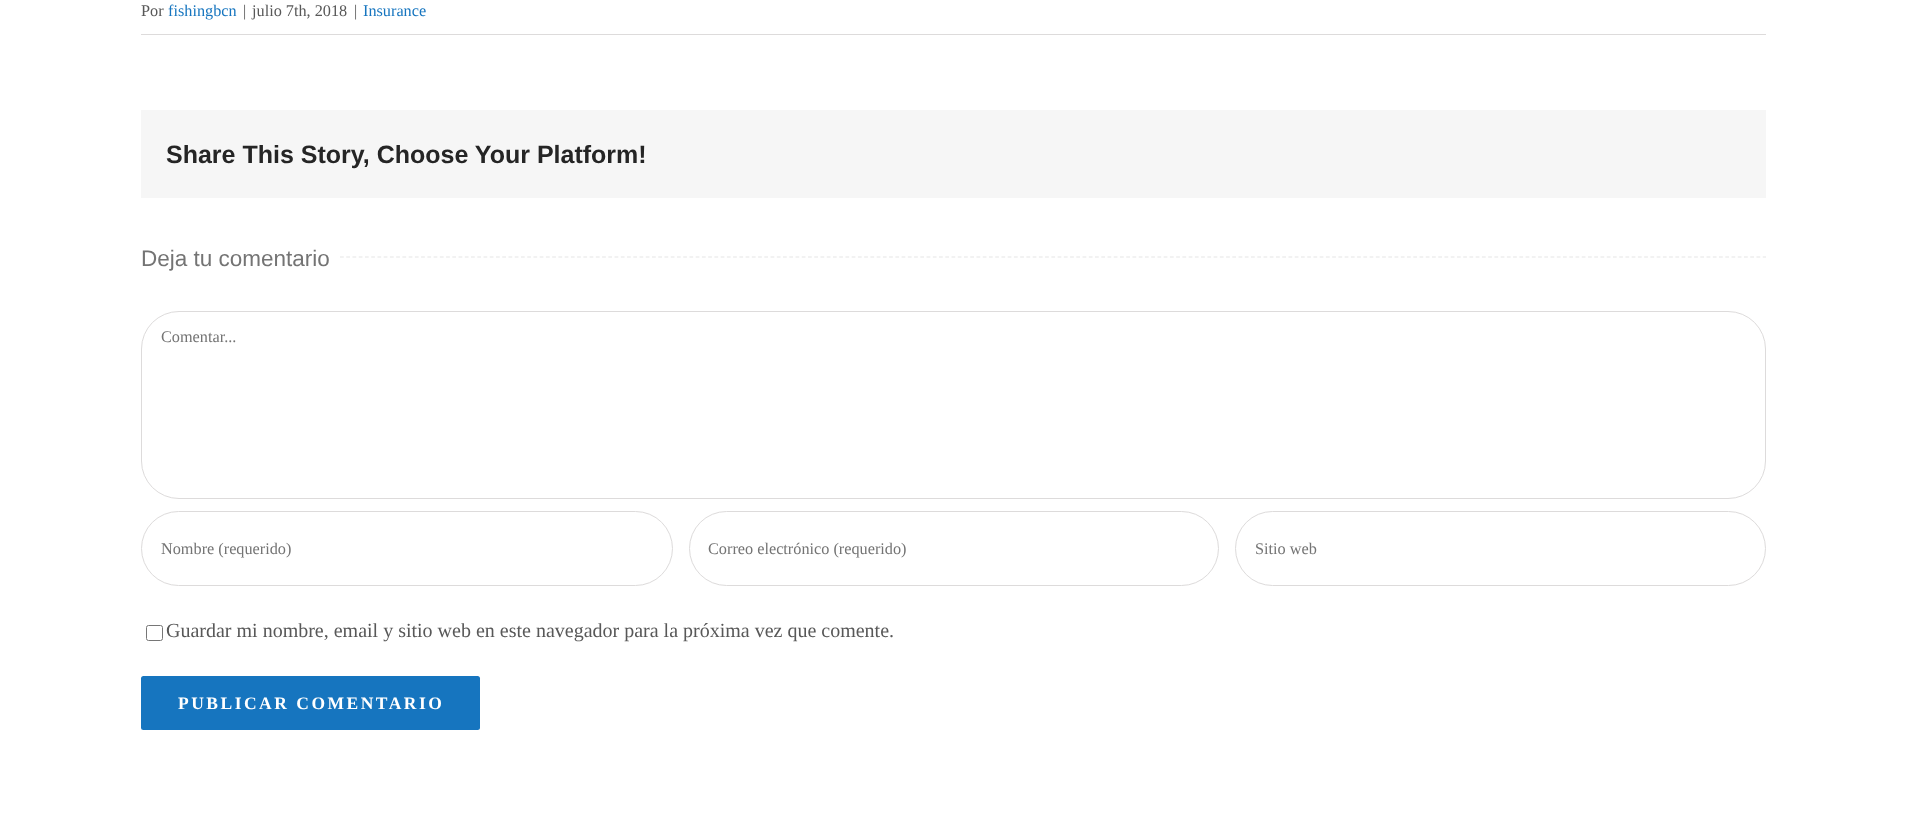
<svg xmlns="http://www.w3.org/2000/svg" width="1907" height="823">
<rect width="100%" height="100%" fill="#fff"/>
<rect x="141" y="34" width="1625" height="1" fill="#dddbdb"/>
<text x="141" y="16" style="font-family:Liberation Serif;font-size:16.25px;fill:#585858">Por</text>
<text x="168" y="16" style="font-family:Liberation Serif;font-size:16.25px;fill:#1675bf">fishingbcn</text>
<text x="243" y="16" style="font-family:Liberation Serif;font-size:16.25px;fill:#585858">|</text>
<text x="252" y="16" style="font-family:Liberation Serif;font-size:16.25px;fill:#585858">julio 7th, 2018</text>
<text x="354" y="16" style="font-family:Liberation Serif;font-size:16.25px;fill:#585858">|</text>
<text x="363" y="16" style="font-family:Liberation Serif;font-size:16.25px;fill:#1675bf">Insurance</text>
<rect x="141" y="110" width="1625" height="88" fill="#f6f6f6"/>
<text x="166" y="163" style="font-family:Liberation Sans;font-size:25px;font-weight:bold;fill:#252525">Share This Story, Choose Your Platform!</text>
<text x="141" y="266" style="font-family:Liberation Sans;font-size:22.5px;fill:#747474">Deja tu comentario</text>
<path d="M340 257h1426" fill="none" stroke="#e5e5e5" stroke-width="1.2" stroke-dasharray="3.75 2.49"/>
<rect x="141.5" y="311.5" width="1624" height="187" rx="37.5" fill="none" stroke="#dddbdb"/>
<text x="161" y="342" style="font-family:Liberation Serif;font-size:16.25px;fill:#747474">Comentar...</text>
<rect x="141.5" y="511.5" width="531" height="74" rx="37" fill="none" stroke="#dddbdb"/>
<text x="161" y="554" style="font-family:Liberation Serif;font-size:16.25px;fill:#747474">Nombre (requerido)</text>
<rect x="689.5" y="511.5" width="529" height="74" rx="37" fill="none" stroke="#dddbdb"/>
<text x="708" y="554" style="font-family:Liberation Serif;font-size:16.25px;fill:#747474">Correo electrónico (requerido)</text>
<rect x="1235.5" y="511.5" width="530" height="74" rx="37" fill="none" stroke="#dddbdb"/>
<text x="1255" y="554" style="font-family:Liberation Serif;font-size:16.25px;fill:#747474">Sitio web</text>
<rect x="146.5" y="625.5" width="16" height="15" rx="2" fill="none" stroke="#767676"/>
<text x="166" y="637" style="font-family:Liberation Serif;font-size:20px;fill:#585858">Guardar mi nombre, email y sitio web en este navegador para la próxima vez que comente.</text>
<rect x="141" y="676" width="339" height="54" rx="2.5" fill="#1675bf"/>
<text x="178" y="709" style="font-family:Liberation Serif;font-size:17.5px;font-weight:bold;letter-spacing:2.5px;fill:#fff">PUBLICAR COMENTARIO</text>
</svg>
